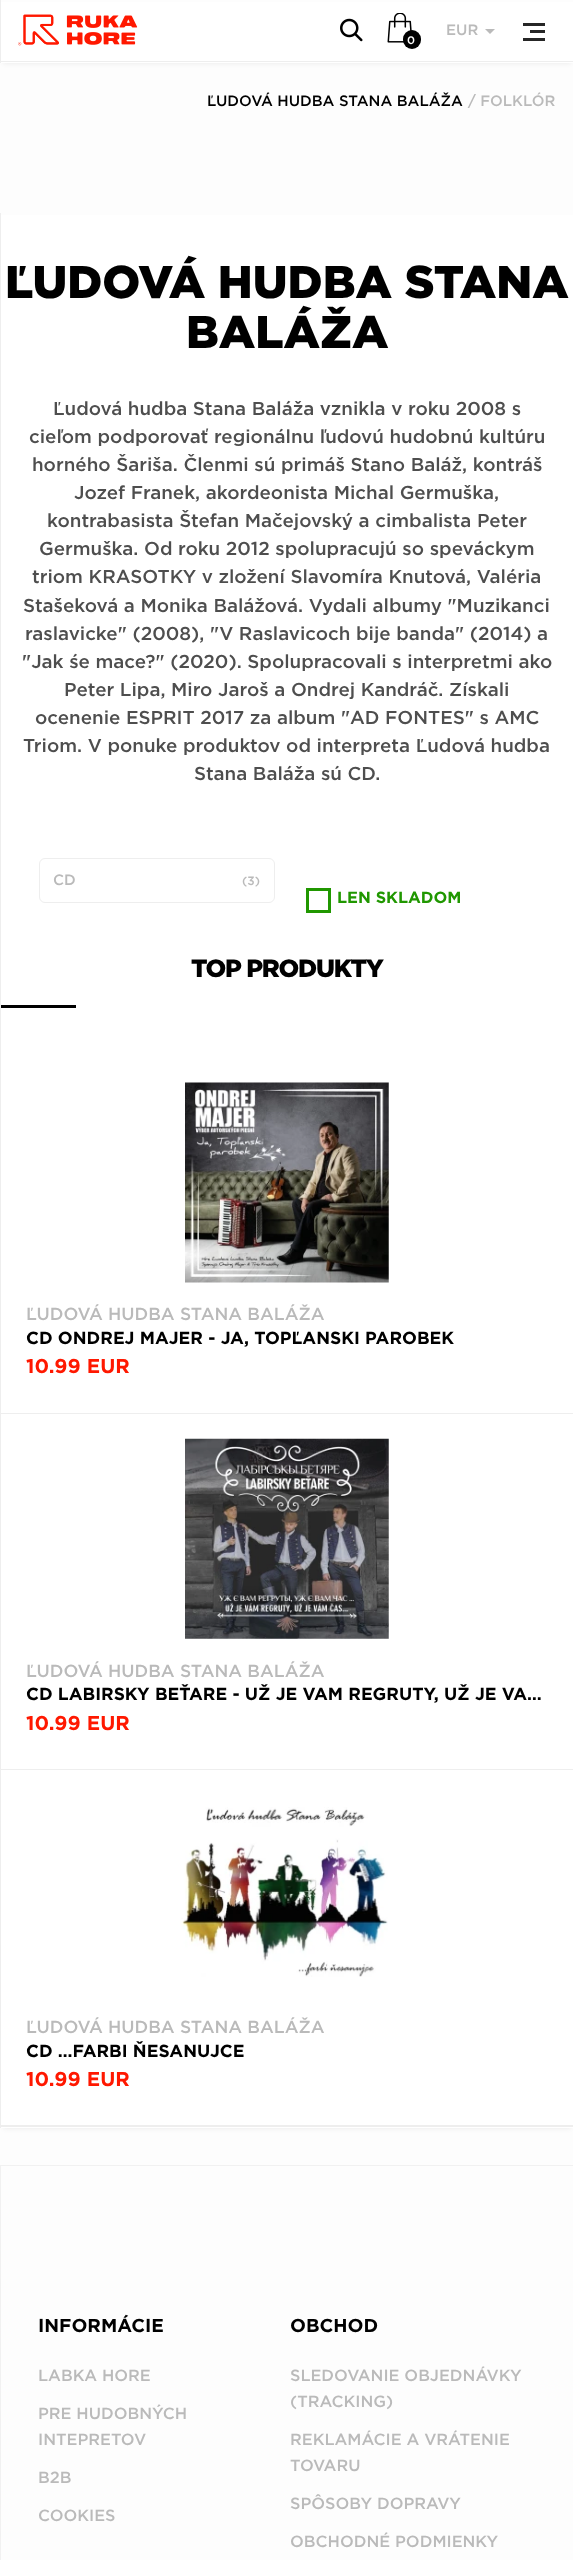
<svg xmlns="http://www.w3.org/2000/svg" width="573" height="2560">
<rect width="100%" height="100%" fill="#fdfdfd"/>
<rect x="3" y="6" width="568" height="58" fill="#0000000f" filter="blur(2px)"/>
<rect x="1" y="2" width="572" height="61" fill="#fff"/>
<rect y="61" width="573" height="1" fill="#eee"/>
<rect width="1" height="63" fill="#eee"/>
<image x="18" y="14" width="120" height="32" href="media/1.png"/>
<image x="340" y="18" width="23" height="24" href="media/2.png"/>
<text x="446" y="35" style="font-family:Gotham;font-size:15px;font-weight:500;fill:#bababa">EUR</text>
<path d="M485 29h10l-5 5z" fill="#bababa"/>
<rect x="523" y="38" width="22" height="3" fill="#262626"/>
<rect x="523" y="23" width="22" height="3" fill="#262626"/>
<rect x="530" y="30" width="15" height="3" fill="#262626"/>
<image x="387" y="13" width="25" height="30" href="media/3.png"/>
<rect x="403" y="30" width="18" height="19" rx="9" fill="#000"/>
<text x="407" y="44" style="font-family:Gotham;font-size:11px;font-weight:500;fill:#fff">0</text>
<text x="207" y="106" style="font-family:Gotham;font-size:15px;font-weight:500;fill:#000">ĽUDOVÁ HUDBA STANA BALÁŽA</text>
<text x="468" y="106" style="font-family:Gotham;font-size:15px;font-weight:500;fill:#bababa">/ FOLKLÓR</text>
<rect x="3" y="219" width="568" height="1910" fill="#0000000f" filter="blur(2px)"/>
<rect x="1" y="215" width="572" height="1913" fill="#fff"/>
<rect y="2126" width="573" height="1" fill="#eee"/>
<rect y="213" width="1" height="1915" fill="#eee"/>
<text x="5" y="298" style="font-family:Gotham;font-size:45.9px;font-weight:900;fill:#000">ĽUDOVÁ HUDBA STANA</text>
<text x="186" y="348" style="font-family:Gotham;font-size:45.9px;font-weight:900;fill:#000">BALÁŽA</text>
<text x="53" y="415" style="font-family:Gotham;font-size:18.75px;font-weight:500;fill:#4e4e4e">Ľudová hudba Stana Baláža vznikla v roku 2008 s</text>
<text x="29" y="443" style="font-family:Gotham;font-size:18.75px;font-weight:500;fill:#4e4e4e">cieľom podporovať regionálnu ľudovú hudobnú kultúru</text>
<text x="32" y="471" style="font-family:Gotham;font-size:18.75px;font-weight:500;fill:#4e4e4e">horného Šariša. Členmi sú primáš Stano Baláž, kontráš</text>
<text x="74" y="499" style="font-family:Gotham;font-size:18.75px;font-weight:500;fill:#4e4e4e">Jozef Franek, akordeonista Michal Germuška,</text>
<text x="47" y="527" style="font-family:Gotham;font-size:18.75px;font-weight:500;fill:#4e4e4e">kontrabasista Štefan Mačejovský a cimbalista Peter</text>
<text x="39" y="555" style="font-family:Gotham;font-size:18.75px;font-weight:500;fill:#4e4e4e">Germuška. Od roku 2012 spolupracujú so speváckym</text>
<text x="32" y="583" style="font-family:Gotham;font-size:18.75px;font-weight:500;fill:#4e4e4e">triom KRASOTKY v zložení Slavomíra Knutová, Valéria</text>
<text x="23" y="612" style="font-family:Gotham;font-size:18.75px;font-weight:500;fill:#4e4e4e">Stašeková a Monika Balážová. Vydali albumy "Muzikanci</text>
<text x="25" y="640" style="font-family:Gotham;font-size:18.75px;font-weight:500;fill:#4e4e4e">raslavicke" (2008), "V Raslavicoch bije banda" (2014) a</text>
<text x="22" y="668" style="font-family:Gotham;font-size:18.75px;font-weight:500;fill:#4e4e4e">"Jak śe mace?" (2020). Spolupracovali s interpretmi ako</text>
<text x="64" y="696" style="font-family:Gotham;font-size:18.75px;font-weight:500;fill:#4e4e4e">Peter Lipa, Miro Jaroš a Ondrej Kandráč. Získali</text>
<text x="35" y="724" style="font-family:Gotham;font-size:18.75px;font-weight:500;fill:#4e4e4e">ocenenie ESPRIT 2017 za album "AD FONTES" s AMC</text>
<text x="23" y="752" style="font-family:Gotham;font-size:18.75px;font-weight:500;fill:#4e4e4e">Triom. V ponuke produktov od interpreta Ľudová hudba</text>
<text x="194" y="780" style="font-family:Gotham;font-size:18.75px;font-weight:500;fill:#4e4e4e">Stana Baláža sú CD.</text>
<rect x="39.5" y="858.5" width="235" height="44" rx="5.5" fill="none" stroke="#eee"/>
<text x="53" y="885" style="font-family:Gotham;font-size:15px;font-weight:500;fill:#bababa">CD</text>
<text x="242" y="885" style="font-family:Gotham;font-size:12px;font-weight:500;fill:#bababa">(3)</text>
<rect x="307.5" y="889.5" width="22" height="22" fill="none" stroke="#209700" stroke-width="3"/>
<text x="337" y="903" style="font-family:Gotham;font-size:16.25px;font-weight:bold;fill:#209700">LEN SKLADOM</text>
<text x="191" y="977" style="font-family:Gotham;font-size:25px;font-weight:900;letter-spacing:-1.25px;fill:#000">TOP PRODUKTY</text>
<rect x="1" y="1005" width="75" height="3" fill="#000"/>
<rect x="1" y="1413" width="572" height="1" fill="#eee"/>
<image x="185" y="1082" width="204" height="201" href="media/4.png"/>
<text x="26" y="1320" style="font-family:Gotham;font-size:17.5px;font-weight:500;fill:#bababa">ĽUDOVÁ HUDBA STANA BALÁŽA</text>
<text x="26" y="1344" style="font-family:Gotham;font-size:17.5px;font-weight:bold;fill:#000">CD ONDREJ MAJER - JA, TOPĽANSKI PAROBEK</text>
<text x="26" y="1373" style="font-family:Gotham;font-size:20px;font-weight:bold;fill:#ff1800">10.99 EUR</text>
<rect x="1" y="1769" width="572" height="1" fill="#eee"/>
<image x="185" y="1438" width="204" height="201" href="media/5.png"/>
<text x="26" y="1677" style="font-family:Gotham;font-size:17.5px;font-weight:500;fill:#bababa">ĽUDOVÁ HUDBA STANA BALÁŽA</text>
<text x="26" y="1700" style="font-family:Gotham;font-size:17.5px;font-weight:bold;fill:#000">CD LABIRSKY BEŤARE - UŽ JE VAM REGRUTY, UŽ JE VA…</text>
<text x="26" y="1730" style="font-family:Gotham;font-size:20px;font-weight:bold;fill:#ff1800">10.99 EUR</text>
<rect x="1" y="2125" width="572" height="1" fill="#eee"/>
<image x="180" y="1807" width="208" height="170" href="media/6.png"/>
<text x="26" y="2033" style="font-family:Gotham;font-size:17.5px;font-weight:500;fill:#bababa">ĽUDOVÁ HUDBA STANA BALÁŽA</text>
<text x="26" y="2057" style="font-family:Gotham;font-size:17.5px;font-weight:bold;fill:#000">CD …FARBI ŇESANUJCE</text>
<text x="26" y="2086" style="font-family:Gotham;font-size:20px;font-weight:bold;fill:#ff1800">10.99 EUR</text>
<rect x="0.5" y="2165.5" width="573" height="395" fill="none" stroke="#f1f1f1"/>
<text x="38" y="2332" style="font-family:Gotham;font-size:18.75px;font-weight:bold;fill:#000">INFORMÁCIE</text>
<text x="38" y="2381" style="font-family:Gotham;font-size:16.25px;font-weight:500;fill:#bababa">LABKA HORE</text>
<text x="38" y="2419" style="font-family:Gotham;font-size:16.25px;font-weight:500;fill:#bababa">PRE HUDOBNÝCH</text>
<text x="38" y="2445" style="font-family:Gotham;font-size:16.25px;font-weight:500;fill:#bababa">INTEPRETOV</text>
<text x="38" y="2483" style="font-family:Gotham;font-size:16.25px;font-weight:500;fill:#bababa">B2B</text>
<text x="38" y="2521" style="font-family:Gotham;font-size:16.25px;font-weight:500;fill:#bababa">COOKIES</text>
<text x="290" y="2332" style="font-family:Gotham;font-size:18.75px;font-weight:bold;fill:#000">OBCHOD</text>
<text x="290" y="2381" style="font-family:Gotham;font-size:16.25px;font-weight:500;fill:#bababa">SLEDOVANIE OBJEDNÁVKY</text>
<text x="290" y="2407" style="font-family:Gotham;font-size:16.25px;font-weight:500;fill:#bababa">(TRACKING)</text>
<text x="290" y="2445" style="font-family:Gotham;font-size:16.25px;font-weight:500;fill:#bababa">REKLAMÁCIE A VRÁTENIE</text>
<text x="290" y="2471" style="font-family:Gotham;font-size:16.25px;font-weight:500;fill:#bababa">TOVARU</text>
<text x="290" y="2509" style="font-family:Gotham;font-size:16.25px;font-weight:500;fill:#bababa">SPÔSOBY DOPRAVY</text>
<text x="290" y="2547" style="font-family:Gotham;font-size:16.25px;font-weight:500;fill:#bababa">OBCHODNÉ PODMIENKY</text>
</svg>
